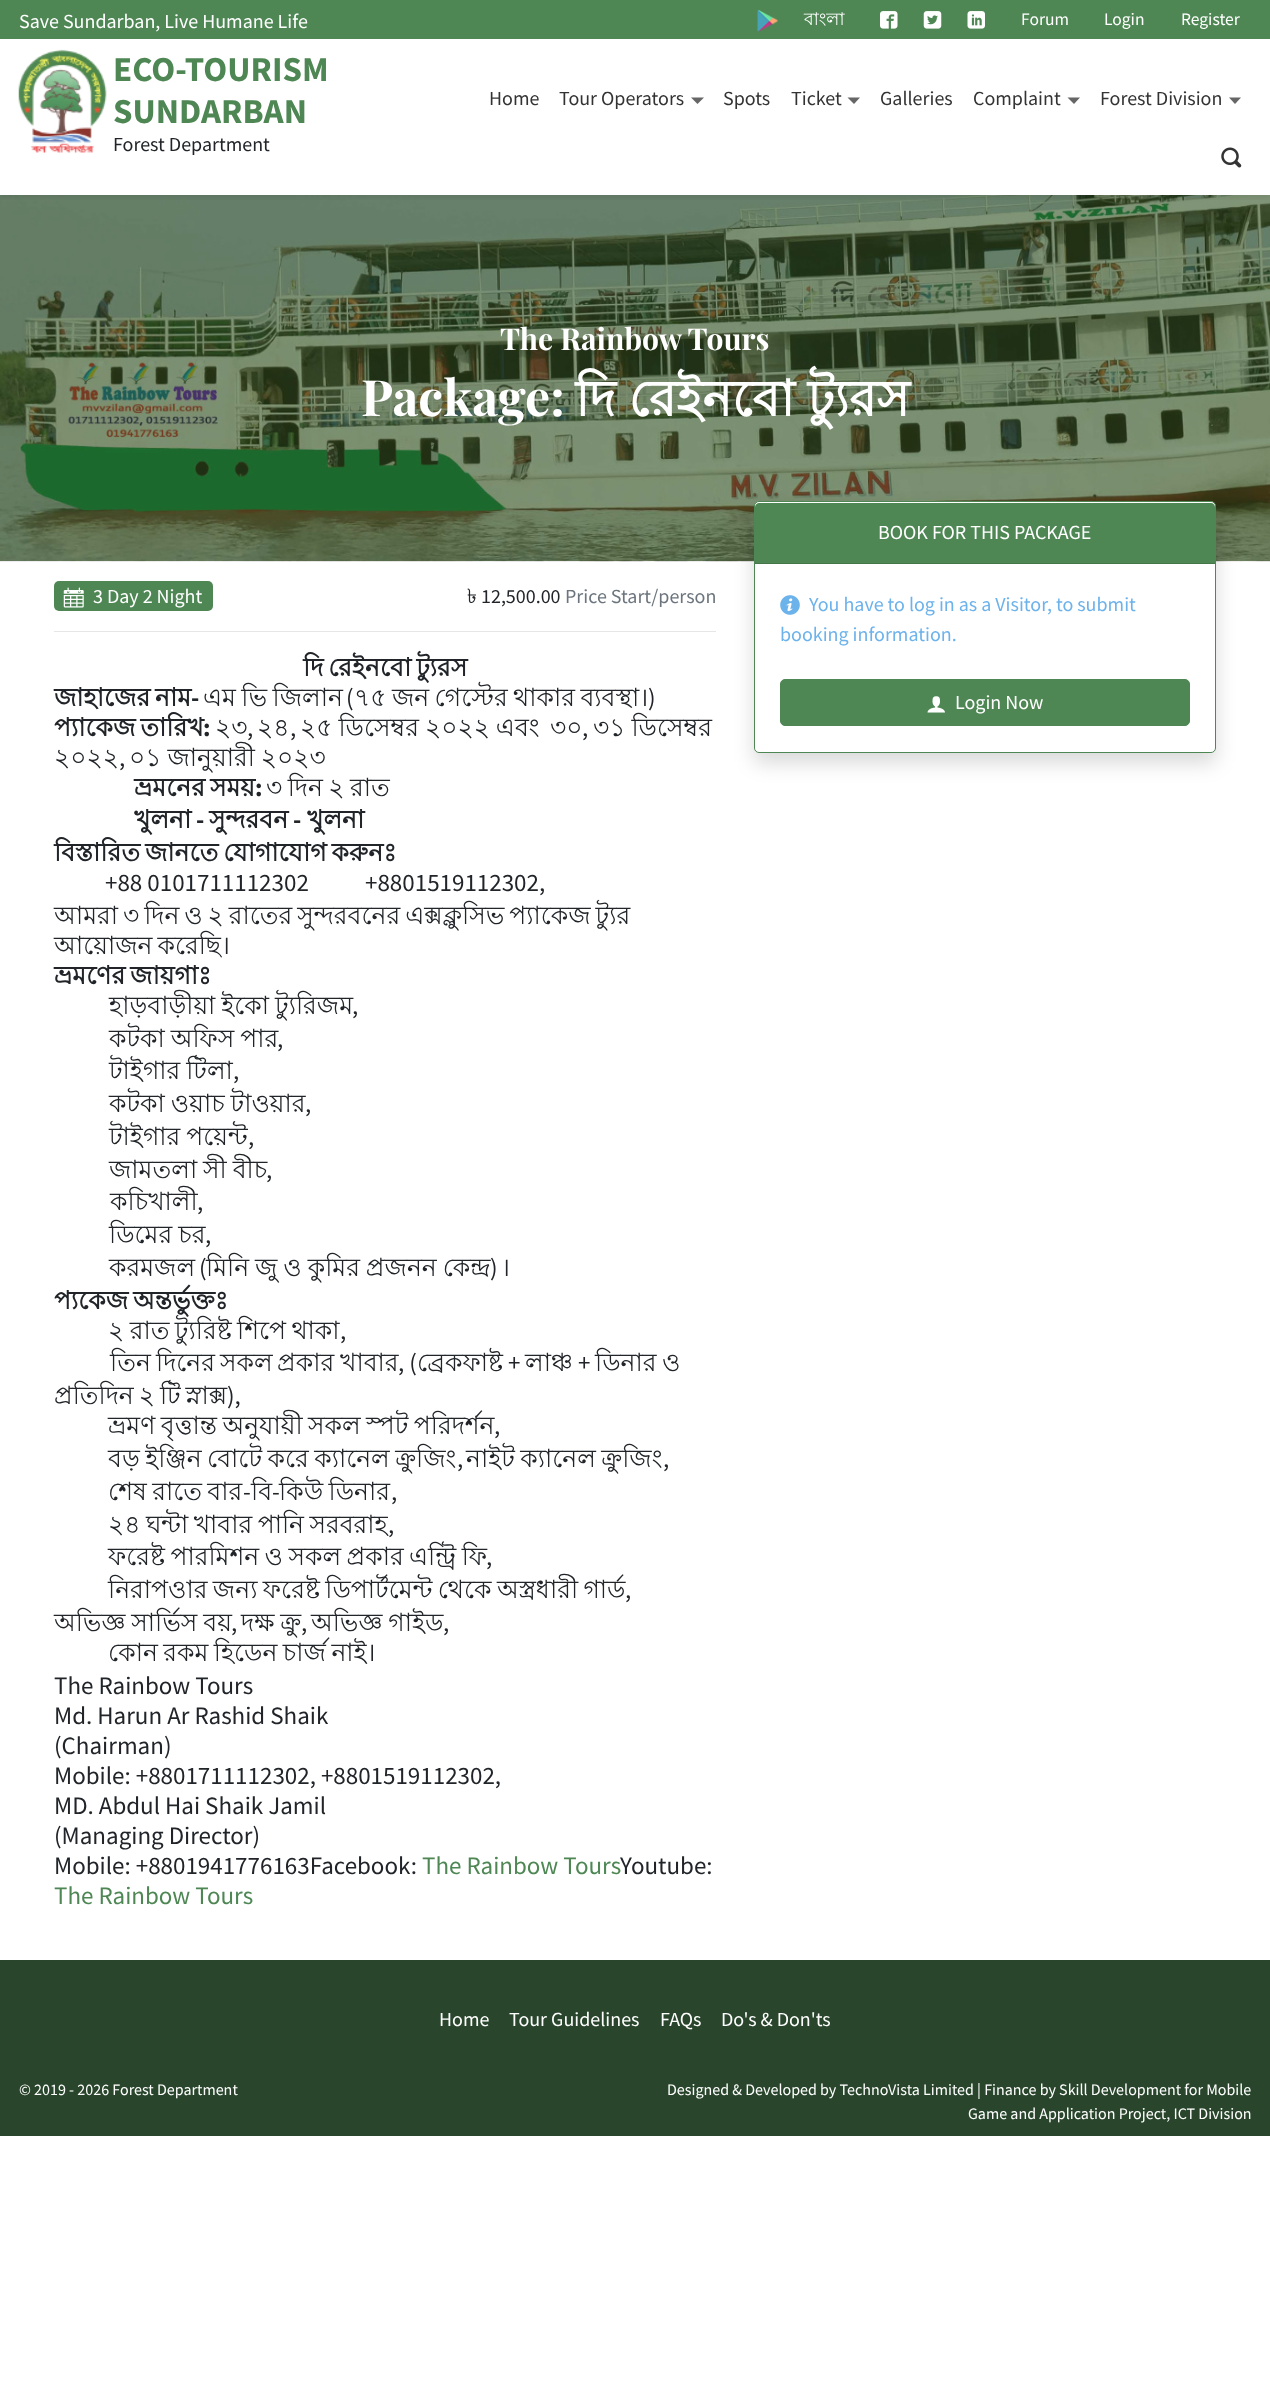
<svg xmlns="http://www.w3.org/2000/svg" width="1270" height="2389">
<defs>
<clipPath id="clip1"><rect x="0" y="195" width="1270" height="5"/></clipPath>
</defs>
<rect width="100%" height="100%" fill="#fff"/>
<image x="0" y="195" width="1270" height="367" href="media/7.png"/>
<g clip-path="url(#clip1)">
<rect y="3" width="1270" height="195" fill="#00000014" filter="blur(2.5px)"/>
</g>
<rect width="1270" height="39" fill="#4e8754"/>
<text x="19" y="28" style="font-family:Source Sans Pro;font-size:20px;fill:#fff">Save Sundarban, Live Humane Life</text>
<image x="757" y="10" width="21" height="22" href="media/1.png"/>
<text x="804" y="25" style="font-family:Lohit Bengali;font-size:17.5px;fill:#fff">বাংলা</text>
<image x="880" y="11" width="18" height="18" href="media/2.png"/>
<image x="923" y="11" width="19" height="18" href="media/3.png"/>
<image x="967" y="11" width="18" height="18" href="media/4.png"/>
<text x="1021" y="25" style="font-family:Source Sans Pro;font-size:17.5px;fill:#fff">Forum</text>
<text x="1104" y="25" style="font-family:Source Sans Pro;font-size:17.5px;fill:#fff">Login</text>
<text x="1181" y="25" style="font-family:Source Sans Pro;font-size:17.5px;fill:#fff">Register</text>
<image x="18" y="49" width="89" height="104" href="media/5.png"/>
<text x="113" y="81" style="font-family:Source Sans Pro;font-size:35px;font-weight:bold;fill:#4e8754">ECO-TOURISM</text>
<text x="113" y="123" style="font-family:Source Sans Pro;font-size:35px;font-weight:bold;fill:#4e8754">SUNDARBAN</text>
<text x="113" y="151" style="font-family:Source Sans Pro;font-size:20px;fill:#212529">Forest Department</text>
<text x="489" y="105" style="font-family:Source Sans Pro;font-size:20px;fill:#333">Home</text>
<text x="559" y="105" style="font-family:Source Sans Pro;font-size:20px;fill:#333">Tour Operators</text>
<path d="M691 97.5h13l-6.5 6.5z" fill="#666"/>
<text x="723" y="105" style="font-family:Source Sans Pro;font-size:20px;fill:#333">Spots</text>
<text x="791" y="105" style="font-family:Source Sans Pro;font-size:20px;fill:#333">Ticket</text>
<path d="M847.5 97.5h12.5l-6 6.5z" fill="#666"/>
<text x="880" y="105" style="font-family:Source Sans Pro;font-size:20px;fill:#333">Galleries</text>
<text x="973" y="105" style="font-family:Source Sans Pro;font-size:20px;fill:#333">Complaint</text>
<path d="M1067.5 97.5h12.5l-6 6.5z" fill="#666"/>
<text x="1100" y="105" style="font-family:Source Sans Pro;font-size:20px;fill:#333">Forest Division</text>
<path d="M1229 97.5h12l-6 6.5z" fill="#666"/>
<image x="1221" y="147" width="21" height="21" href="media/6.png"/>
<text x="500" y="350" style="font-family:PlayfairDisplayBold;font-size:30px;font-weight:bold;fill:#fff">The Rainbow Tours</text>
<text x="361" y="416" style="font-family:PlayfairDisplayBold;font-size:50px;font-weight:bold;fill:#fff">Package:</text>
<text x="575" y="416" word-spacing="-1" style="font-family:Lohit Bengali;font-size:50px;font-weight:bold;fill:#fff">দি রেইনবো ট্যুরস</text>
<rect x="54" y="581" width="159" height="30" rx="5" fill="#4e8754"/>
<image x="63" y="587" width="21" height="21" href="media/8.png"/>
<text x="93" y="603" style="font-family:Source Sans Pro;font-size:20px;fill:#fff">3 Day 2 Night</text>
<text x="467" y="603" style="font-family:Lohit Bengali;font-size:20px;fill:#212529">৳</text>
<text x="481" y="603" style="font-family:Source Sans Pro;font-size:20px;fill:#212529">12,500.00</text>
<text x="565" y="603" style="font-family:Source Sans Pro;font-size:20px;fill:#6c757d">Price Start/person</text>
<rect x="54" y="631" width="662" height="1" fill="#e6e6e6"/>
<text x="303" y="676" word-spacing="-2" style="font-family:Lohit Bengali;font-size:25px;font-weight:bold;fill:#212529">দি রেইনবো ট্যুরস</text>
<text x="54" y="706" word-spacing="-2" style="font-family:Lohit Bengali;font-size:25px;font-weight:bold;fill:#212529">জাহাজের নাম</text>
<text x="191" y="706" style="font-family:Source Sans Pro;font-size:25px;font-weight:bold;fill:#212529">-</text>
<text x="203" y="706" word-spacing="-1.5" style="font-family:Lohit Bengali;font-size:25px;fill:#212529">এম ভি জিলান</text>
<text x="346" y="706" style="font-family:Source Sans Pro;font-size:25px;fill:#212529">(</text>
<text x="354" y="706" word-spacing="-1.5" style="font-family:Lohit Bengali;font-size:25px;fill:#212529">৭৫ জন গেস্টের থাকার ব্যবস্থা।</text>
<text x="648" y="706" style="font-family:Source Sans Pro;font-size:25px;fill:#212529">)</text>
<text x="54" y="736" word-spacing="-2" style="font-family:Lohit Bengali;font-size:25px;font-weight:bold;fill:#212529">প্যাকেজ তারিখ</text>
<text x="203" y="736" style="font-family:Source Sans Pro;font-size:25px;font-weight:bold;fill:#212529">:</text>
<text x="215" y="736" style="font-family:Lohit Bengali;font-size:25px;fill:#212529">২৩</text>
<text x="247" y="736" style="font-family:Source Sans Pro;font-size:25px;fill:#212529">,</text>
<text x="257" y="736" style="font-family:Lohit Bengali;font-size:25px;fill:#212529">২৪</text>
<text x="290" y="736" style="font-family:Source Sans Pro;font-size:25px;fill:#212529">,</text>
<text x="300" y="736" word-spacing="-1" style="font-family:Lohit Bengali;font-size:25px;fill:#212529">২৫ ডিসেম্বর ২০২২ এবং</text>
<text x="550" y="736" style="font-family:Lohit Bengali;font-size:25px;fill:#212529">৩০</text>
<text x="582" y="736" style="font-family:Source Sans Pro;font-size:25px;fill:#212529">,</text>
<text x="593" y="736" word-spacing="-1" style="font-family:Lohit Bengali;font-size:25px;fill:#212529">৩১ ডিসেম্বর</text>
<text x="54" y="766" style="font-family:Lohit Bengali;font-size:25px;fill:#212529">২০২২</text>
<text x="119" y="766" style="font-family:Source Sans Pro;font-size:25px;fill:#212529">,</text>
<text x="129" y="766" word-spacing="-1" style="font-family:Lohit Bengali;font-size:25px;fill:#212529">০১ জানুয়ারী ২০২৩</text>
<text x="134" y="796" word-spacing="-2" style="font-family:Lohit Bengali;font-size:25px;font-weight:bold;fill:#212529">ভ্রমনের সময়</text>
<text x="255" y="796" style="font-family:Source Sans Pro;font-size:25px;font-weight:bold;fill:#212529">:</text>
<text x="266" y="796" word-spacing="-1.5" style="font-family:Lohit Bengali;font-size:25px;fill:#212529">৩ দিন ২ রাত</text>
<text x="134" y="828" style="font-family:Lohit Bengali;font-size:25px;font-weight:bold;fill:#212529">খুলনা</text>
<text x="196" y="828" style="font-family:Source Sans Pro;font-size:25px;font-weight:bold;fill:#212529">-</text>
<text x="209" y="828" style="font-family:Lohit Bengali;font-size:25px;font-weight:bold;fill:#212529">সুন্দরবন</text>
<text x="293" y="828" style="font-family:Source Sans Pro;font-size:25px;font-weight:bold;fill:#212529">-</text>
<text x="307" y="828" style="font-family:Lohit Bengali;font-size:25px;font-weight:bold;fill:#212529">খুলনা</text>
<text x="54" y="861" word-spacing="-2" style="font-family:Lohit Bengali;font-size:25px;font-weight:bold;fill:#212529">বিস্তারিত জানতে যোগাযোগ করুনঃ</text>
<text x="105" y="891" style="font-family:Source Sans Pro;font-size:25px;fill:#212529">+88 0101711112302</text>
<text x="365" y="891" style="font-family:Source Sans Pro;font-size:25px;fill:#212529">+8801519112302,</text>
<text x="54" y="924" word-spacing="-2" style="font-family:Lohit Bengali;font-size:25px;fill:#212529">আমরা ৩ দিন ও ২ রাতের সুন্দরবনের এক্সক্লুসিভ প্যাকেজ ট্যুর</text>
<text x="54" y="954" word-spacing="-2" style="font-family:Lohit Bengali;font-size:25px;fill:#212529">আয়োজন করেছি।</text>
<text x="54" y="984" word-spacing="-2" style="font-family:Lohit Bengali;font-size:25px;font-weight:bold;fill:#212529">ভ্রমণের জায়গাঃ</text>
<text x="109" y="1014" word-spacing="-1" style="font-family:Lohit Bengali;font-size:25px;fill:#212529">হাড়বাড়ীয়া ইকো ট্যুরিজম</text>
<text x="352" y="1014" style="font-family:Source Sans Pro;font-size:25px;fill:#212529">,</text>
<text x="109" y="1047" word-spacing="-1" style="font-family:Lohit Bengali;font-size:25px;fill:#212529">কটকা অফিস পার</text>
<text x="277" y="1047" style="font-family:Source Sans Pro;font-size:25px;fill:#212529">,</text>
<text x="109" y="1079" word-spacing="-1" style="font-family:Lohit Bengali;font-size:25px;fill:#212529">টাইগার টিলা</text>
<text x="233" y="1079" style="font-family:Source Sans Pro;font-size:25px;fill:#212529">,</text>
<text x="109" y="1112" word-spacing="-1" style="font-family:Lohit Bengali;font-size:25px;fill:#212529">কটকা ওয়াচ টাওয়ার</text>
<text x="305" y="1112" style="font-family:Source Sans Pro;font-size:25px;fill:#212529">,</text>
<text x="109" y="1145" word-spacing="-1" style="font-family:Lohit Bengali;font-size:25px;fill:#212529">টাইগার পয়েন্ট</text>
<text x="248" y="1145" style="font-family:Source Sans Pro;font-size:25px;fill:#212529">,</text>
<text x="109" y="1178" word-spacing="-1" style="font-family:Lohit Bengali;font-size:25px;fill:#212529">জামতলা সী বীচ</text>
<text x="266" y="1178" style="font-family:Source Sans Pro;font-size:25px;fill:#212529">,</text>
<text x="110" y="1210" style="font-family:Lohit Bengali;font-size:25px;fill:#212529">কচিখালী</text>
<text x="197" y="1210" style="font-family:Source Sans Pro;font-size:25px;fill:#212529">,</text>
<text x="109" y="1243" word-spacing="-1" style="font-family:Lohit Bengali;font-size:25px;fill:#212529">ডিমের চর</text>
<text x="205" y="1243" style="font-family:Source Sans Pro;font-size:25px;fill:#212529">,</text>
<text x="109" y="1276" style="font-family:Lohit Bengali;font-size:25px;fill:#212529">করমজল</text>
<text x="199" y="1276" style="font-family:Source Sans Pro;font-size:25px;fill:#212529">(</text>
<text x="206" y="1276" word-spacing="-1" style="font-family:Lohit Bengali;font-size:25px;fill:#212529">মিনি জু ও কুমির প্রজনন কেন্দ্র</text>
<text x="490" y="1276" style="font-family:Source Sans Pro;font-size:25px;fill:#212529">)</text>
<text x="501" y="1276" style="font-family:Lohit Bengali;font-size:25px;fill:#212529">।</text>
<text x="54" y="1309" word-spacing="-2" style="font-family:Lohit Bengali;font-size:25px;font-weight:bold;fill:#212529">প্যকেজ অন্তর্ভুক্তঃ</text>
<text x="108" y="1339" word-spacing="-1.5" style="font-family:Lohit Bengali;font-size:25px;fill:#212529">২ রাত ট্যুরিষ্ট শিপে থাকা</text>
<text x="340" y="1339" style="font-family:Source Sans Pro;font-size:25px;fill:#212529">,</text>
<text x="110" y="1371" style="font-family:Lohit Bengali;font-size:25px;fill:#212529">তিন</text>
<text x="156" y="1371" style="font-family:Lohit Bengali;font-size:25px;fill:#212529">দিনের</text>
<text x="220" y="1371" style="font-family:Lohit Bengali;font-size:25px;fill:#212529">সকল</text>
<text x="277" y="1371" style="font-family:Lohit Bengali;font-size:25px;fill:#212529">প্রকার</text>
<text x="340" y="1371" style="font-family:Lohit Bengali;font-size:25px;fill:#212529">খাবার</text>
<text x="398" y="1371" style="font-family:Source Sans Pro;font-size:25px;fill:#212529">, (</text>
<text x="417" y="1371" style="font-family:Lohit Bengali;font-size:25px;fill:#212529">ব্রেকফাষ্ট</text>
<text x="508" y="1371" style="font-family:Source Sans Pro;font-size:25px;fill:#212529">+</text>
<text x="525" y="1371" style="font-family:Lohit Bengali;font-size:25px;fill:#212529">লাঞ্চ</text>
<text x="578" y="1371" style="font-family:Source Sans Pro;font-size:25px;fill:#212529">+</text>
<text x="595" y="1371" style="font-family:Lohit Bengali;font-size:25px;fill:#212529">ডিনার</text>
<text x="662" y="1371" style="font-family:Lohit Bengali;font-size:25px;fill:#212529">ও</text>
<text x="54" y="1404" word-spacing="-2" style="font-family:Lohit Bengali;font-size:25px;fill:#212529">প্রতিদিন ২ টি স্নাক্স</text>
<text x="227" y="1404" style="font-family:Source Sans Pro;font-size:25px;fill:#212529">),</text>
<text x="108" y="1434" word-spacing="-1.5" style="font-family:Lohit Bengali;font-size:25px;fill:#212529">ভ্রমণ বৃত্তান্ত অনুযায়ী সকল স্পট পরিদর্শন</text>
<text x="494" y="1434" style="font-family:Source Sans Pro;font-size:25px;fill:#212529">,</text>
<text x="108" y="1467" word-spacing="-1.5" style="font-family:Lohit Bengali;font-size:25px;fill:#212529">বড় ইঞ্জিন বোটে করে ক্যানেল ক্রুজিং</text>
<text x="457" y="1467" style="font-family:Source Sans Pro;font-size:25px;fill:#212529">,</text>
<text x="466" y="1467" word-spacing="-1.5" style="font-family:Lohit Bengali;font-size:25px;fill:#212529">নাইট ক্যানেল ক্রুজিং</text>
<text x="663" y="1467" style="font-family:Source Sans Pro;font-size:25px;fill:#212529">,</text>
<text x="108" y="1500" word-spacing="-1.5" style="font-family:Lohit Bengali;font-size:25px;fill:#212529">শেষ রাতে বার</text>
<text x="243" y="1500" style="font-family:Source Sans Pro;font-size:25px;fill:#212529">-</text>
<text x="251" y="1500" style="font-family:Lohit Bengali;font-size:25px;fill:#212529">বি</text>
<text x="272" y="1500" style="font-family:Source Sans Pro;font-size:25px;fill:#212529">-</text>
<text x="279" y="1500" word-spacing="-1.5" style="font-family:Lohit Bengali;font-size:25px;fill:#212529">কিউ ডিনার</text>
<text x="391" y="1500" style="font-family:Source Sans Pro;font-size:25px;fill:#212529">,</text>
<text x="108" y="1533" word-spacing="-1.5" style="font-family:Lohit Bengali;font-size:25px;fill:#212529">২৪ ঘন্টা খাবার পানি সরবরাহ</text>
<text x="388" y="1533" style="font-family:Source Sans Pro;font-size:25px;fill:#212529">,</text>
<text x="108" y="1565" word-spacing="-1.5" style="font-family:Lohit Bengali;font-size:25px;fill:#212529">ফরেষ্ট পারমিশন ও সকল প্রকার এন্ট্রি ফি</text>
<text x="486" y="1565" style="font-family:Source Sans Pro;font-size:25px;fill:#212529">,</text>
<text x="108" y="1598" word-spacing="-1.5" style="font-family:Lohit Bengali;font-size:25px;fill:#212529">নিরাপওার জন্য ফরেষ্ট ডিপার্টমেন্ট থেকে অস্ত্রধারী গার্ড</text>
<text x="625" y="1598" style="font-family:Source Sans Pro;font-size:25px;fill:#212529">,</text>
<text x="54" y="1631" word-spacing="-1" style="font-family:Lohit Bengali;font-size:25px;fill:#212529">অভিজ্ঞ সার্ভিস বয়</text>
<text x="231" y="1631" style="font-family:Source Sans Pro;font-size:25px;fill:#212529">,</text>
<text x="241" y="1631" word-spacing="-1" style="font-family:Lohit Bengali;font-size:25px;fill:#212529">দক্ষ ক্রু</text>
<text x="301" y="1631" style="font-family:Source Sans Pro;font-size:25px;fill:#212529">,</text>
<text x="311" y="1631" word-spacing="-1" style="font-family:Lohit Bengali;font-size:25px;fill:#212529">অভিজ্ঞ গাইড</text>
<text x="443" y="1631" style="font-family:Source Sans Pro;font-size:25px;fill:#212529">,</text>
<text x="108" y="1661" word-spacing="-1.5" style="font-family:Lohit Bengali;font-size:25px;fill:#212529">কোন রকম হিডেন চার্জ নাই।</text>
<text x="54" y="1694" style="font-family:Source Sans Pro;font-size:25px;fill:#212529">The Rainbow Tours</text>
<text x="54" y="1724" style="font-family:Source Sans Pro;font-size:25px;fill:#212529">Md. Harun Ar Rashid Shaik</text>
<text x="54" y="1754" style="font-family:Source Sans Pro;font-size:25px;fill:#212529">(Chairman)</text>
<text x="54" y="1784" style="font-family:Source Sans Pro;font-size:25px;fill:#212529">Mobile: +8801711112302, +8801519112302,</text>
<text x="54" y="1814" style="font-family:Source Sans Pro;font-size:25px;fill:#212529">MD. Abdul Hai Shaik Jamil</text>
<text x="54" y="1844" style="font-family:Source Sans Pro;font-size:25px;fill:#212529">(Managing Director)</text>
<text x="54" y="1874" style="font-family:Source Sans Pro;font-size:25px;fill:#212529">Mobile: +8801941776163Facebook:</text>
<text x="422" y="1874" style="font-family:Source Sans Pro;font-size:25px;fill:#4e8754">The Rainbow Tours</text>
<text x="620" y="1874" style="font-family:Source Sans Pro;font-size:25px;fill:#212529">Youtube:</text>
<text x="54" y="1904" style="font-family:Source Sans Pro;font-size:25px;fill:#4e8754">The Rainbow Tours</text>
<rect x="754" y="511" width="462" height="252" rx="5" fill="#00000026" filter="blur(10px)"/>
<rect x="754.5" y="501.5" width="461" height="251" rx="4.5" fill="#fff" stroke="#4e8754"/>
<path d="M759 503h452c2 0 4 2 4 4v57h-460v-57c0-2 2-4 4-4z" fill="#4e8754"/>
<rect x="755" y="563" width="460" height="1" fill="#44764a"/>
<text x="878" y="539" style="font-family:Source Sans Pro;font-size:20px;fill:#fff">BOOK FOR THIS PACKAGE</text>
<image x="780" y="595" width="20" height="20" href="media/9.png"/>
<text x="809" y="611" style="font-family:Source Sans Pro;font-size:20px;fill:#6cb2eb">You have to log in as a Visitor, to submit</text>
<text x="780" y="641" style="font-family:Source Sans Pro;font-size:20px;fill:#6cb2eb">booking information.</text>
<rect x="780.5" y="679.5" width="409" height="46" rx="4.5" fill="#4e8754" stroke="#4e8754"/>
<image x="927" y="696" width="18" height="17" href="media/10.png"/>
<text x="955" y="709" style="font-family:Source Sans Pro;font-size:20px;fill:#fff">Login Now</text>
<rect y="1960" width="1270" height="176" fill="#29462c"/>
<text x="439" y="2026" style="font-family:Source Sans Pro;font-size:20px;fill:#fff">Home</text>
<text x="509" y="2026" style="font-family:Source Sans Pro;font-size:20px;fill:#fff">Tour Guidelines</text>
<text x="660" y="2026" style="font-family:Source Sans Pro;font-size:20px;fill:#fff">FAQs</text>
<text x="721" y="2026" style="font-family:Source Sans Pro;font-size:20px;fill:#fff">Do's &amp; Don'ts</text>
<text x="19" y="2095" style="font-family:Source Sans Pro;font-size:16px;fill:#fff">© 2019 - 2026 Forest Department</text>
<text x="667" y="2095" style="font-family:Source Sans Pro;font-size:16px;fill:#fff">Designed &amp; Developed by TechnoVista Limited | Finance by Skill Development for Mobile</text>
<text x="968" y="2119" style="font-family:Source Sans Pro;font-size:16px;fill:#fff">Game and Application Project, ICT Division</text>
</svg>
